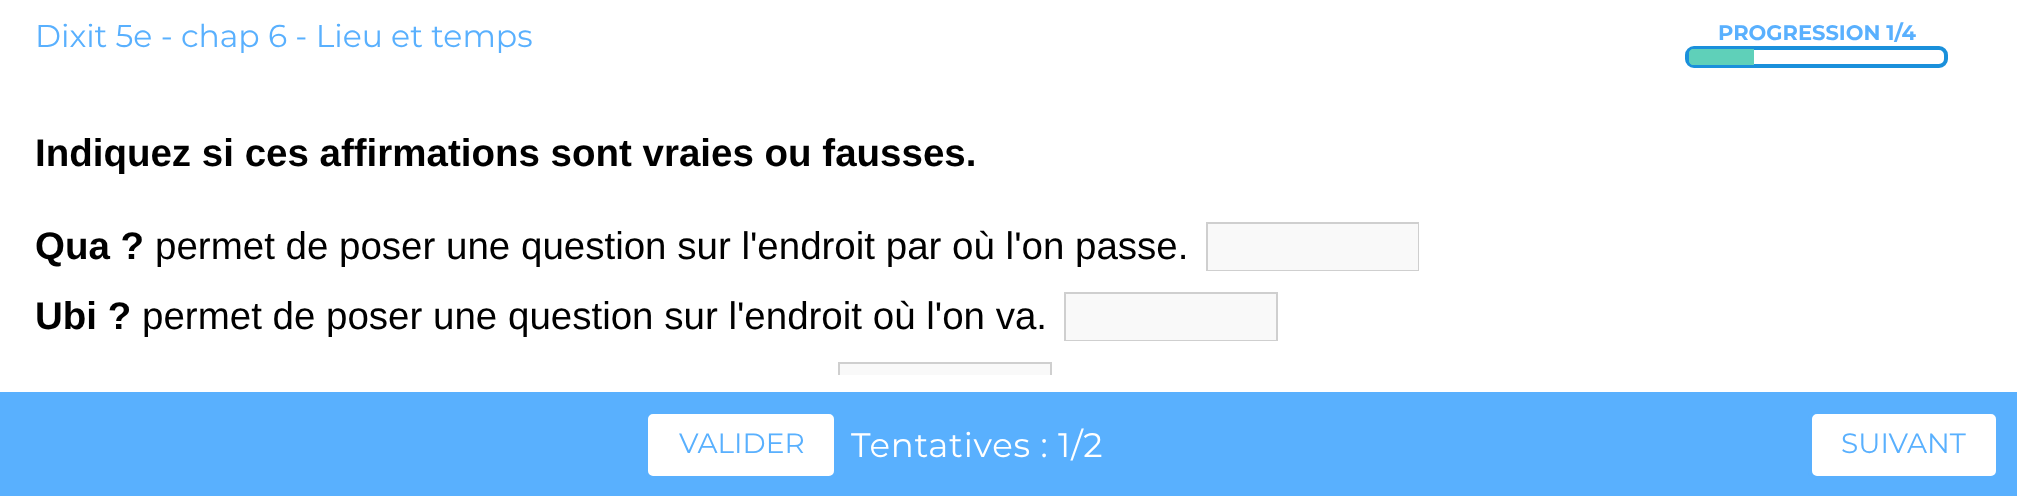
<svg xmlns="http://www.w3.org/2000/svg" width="2017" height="496">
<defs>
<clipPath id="clip1"><rect y="105" width="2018" height="270"/></clipPath>
</defs>
<rect width="100%" height="100%" fill="#fff"/>
<text x="35" y="47" style="font-family:Montserrat;font-size:31.5px;fill:#59b0fe">Dixit 5e - chap 6 - Lieu et temps</text>
<text x="1718" y="40" style="font-family:Montserrat;font-size:21px;font-weight:bold;fill:#59b0fe">PROGRESSION 1/4</text>
<rect x="1687" y="48" width="259" height="18" rx="7" fill="none" stroke="#1a90db" stroke-width="4"/>
<path d="M1694 49h60v16h-60c-3 0-5-2-5-5v-6c0-3 2-5 5-5z" fill="#5fd0b9"/>
<path d="M1694 49c-3 0-5 2-5 5v6c0 3 2 5 5 5h60v-16zm-3 2v12h61v-12z" fill="#5fd0b9" fill-rule="evenodd"/>
<text x="35" y="166" style="font-family:Liberation Sans;font-size:38.5px;font-weight:bold;fill:#000">Indiquez si ces affirmations sont vraies ou fausses.</text>
<text x="35" y="259" style="font-family:Liberation Sans;font-size:38.5px;font-weight:bold;fill:#000">Qua ?</text>
<text x="155" y="259" style="font-family:Liberation Sans;font-size:38.5px;fill:#000">permet de poser une question sur l'endroit par où l'on passe.</text>
<rect x="1207" y="223" width="211" height="47" fill="none" stroke="#cfcfcf" stroke-width="2"/>
<rect x="1208" y="224" width="210" height="46" fill="#f9f9f9"/>
<text x="35" y="329" style="font-family:Liberation Sans;font-size:38.5px;font-weight:bold;fill:#000">Ubi ?</text>
<text x="142" y="329" style="font-family:Liberation Sans;font-size:38.5px;fill:#000">permet de poser une question sur l'endroit où l'on va.</text>
<rect x="1065" y="293" width="212" height="47" fill="none" stroke="#cfcfcf" stroke-width="2"/>
<rect x="1066" y="294" width="210" height="46" fill="#f9f9f9"/>
<rect x="840" y="364" width="210" height="11" fill="#f9f9f9"/>
<g clip-path="url(#clip1)">
<rect x="839" y="363" width="212" height="47" fill="none" stroke="#cfcfcf" stroke-width="2"/>
</g>
<rect y="392" width="2017" height="104" fill="#59b0fe"/>
<rect x="646" y="412" width="190" height="66" rx="7" fill="#fff" stroke="#59b0fe" stroke-width="4"/>
<text x="679" y="453" style="font-family:Montserrat;font-size:28px;fill:#59b0fe">VALIDER</text>
<rect x="1810" y="412" width="188" height="66" rx="7" fill="#fff" stroke="#59b0fe" stroke-width="4"/>
<text x="1841" y="453" style="font-family:Montserrat;font-size:28px;fill:#59b0fe">SUIVANT</text>
<text x="851" y="457" style="font-family:Montserrat;font-size:34px;letter-spacing:0.75px;fill:#fff">Tentatives : 1/2</text>
</svg>
